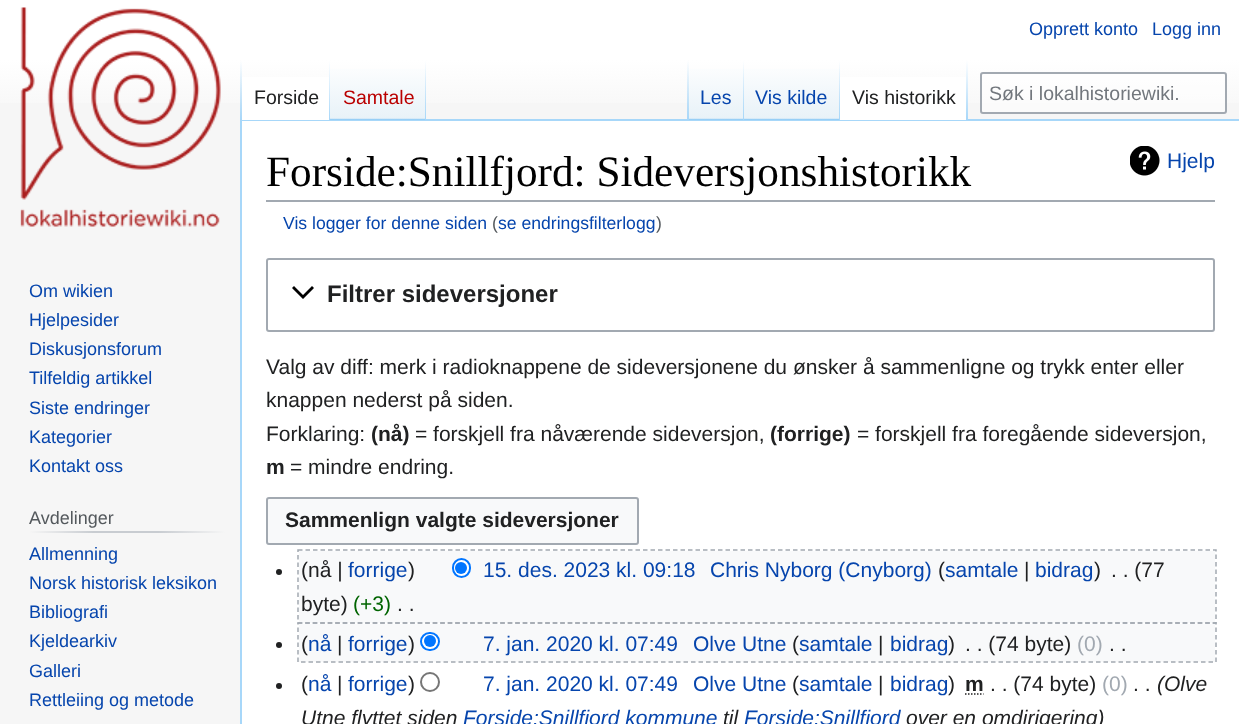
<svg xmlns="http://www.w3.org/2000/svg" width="1239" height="724">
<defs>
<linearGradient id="g1" gradientUnits="userSpaceOnUse" x1="620" y1="0" x2="620" y2="120"><stop offset="0.5" stop-color="#fff"/><stop offset="1" stop-color="#f6f6f6"/></linearGradient>
<linearGradient id="g2" gradientUnits="userSpaceOnUse" x1="241" y1="60" x2="241" y2="120"><stop offset="0" stop-color="#a7d7f9" stop-opacity="0"/><stop offset="1" stop-color="#a7d7f9"/></linearGradient>
<linearGradient id="g3" gradientUnits="userSpaceOnUse" x1="329" y1="60" x2="329" y2="120"><stop offset="0" stop-color="#fff"/><stop offset="1" stop-color="#a7d7f9"/></linearGradient>
<linearGradient id="g4" gradientUnits="userSpaceOnUse" x1="378" y1="120" x2="378" y2="60"><stop offset="0" stop-color="#77c1f6"/><stop offset="0.03" stop-color="#e8f2f8"/><stop offset="1" stop-color="#fff"/></linearGradient>
<linearGradient id="g5" gradientUnits="userSpaceOnUse" x1="425" y1="60" x2="425" y2="120"><stop offset="0" stop-color="#a7d7f9" stop-opacity="0"/><stop offset="1" stop-color="#a7d7f9"/></linearGradient>
<linearGradient id="g6" gradientUnits="userSpaceOnUse" x1="688" y1="60" x2="688" y2="120"><stop offset="0" stop-color="#a7d7f9" stop-opacity="0"/><stop offset="1" stop-color="#a7d7f9"/></linearGradient>
<linearGradient id="g7" gradientUnits="userSpaceOnUse" x1="716" y1="120" x2="716" y2="60"><stop offset="0" stop-color="#77c1f6"/><stop offset="0.03" stop-color="#e8f2f8"/><stop offset="1" stop-color="#fff"/></linearGradient>
<linearGradient id="g8" gradientUnits="userSpaceOnUse" x1="743" y1="60" x2="743" y2="120"><stop offset="0" stop-color="#a7d7f9" stop-opacity="0"/><stop offset="1" stop-color="#a7d7f9"/></linearGradient>
<linearGradient id="g9" gradientUnits="userSpaceOnUse" x1="792" y1="120" x2="792" y2="60"><stop offset="0" stop-color="#77c1f6"/><stop offset="0.03" stop-color="#e8f2f8"/><stop offset="1" stop-color="#fff"/></linearGradient>
<linearGradient id="g10" gradientUnits="userSpaceOnUse" x1="839" y1="60" x2="839" y2="120"><stop offset="0" stop-color="#a7d7f9" stop-opacity="0"/><stop offset="1" stop-color="#a7d7f9"/></linearGradient>
<linearGradient id="g11" gradientUnits="userSpaceOnUse" x1="967" y1="60" x2="967" y2="120"><stop offset="0" stop-color="#fff"/><stop offset="1" stop-color="#a7d7f9"/></linearGradient>
<linearGradient id="g12" gradientUnits="userSpaceOnUse" x1="29" y1="532" x2="225" y2="532"><stop offset="0" stop-color="#f6f6f6"/><stop offset="0.33" stop-color="#c8ccd1"/><stop offset="0.66" stop-color="#c8ccd1"/><stop offset="1" stop-color="#f6f6f6"/></linearGradient>
</defs>
<rect width="100%" height="100%" fill="#f6f6f6"/>
<rect width="1239" height="103" fill="url(#g1)"/>
<text x="1029" y="35" style="font-family:Liberation Sans;font-size:18px;fill:#0645ad">Opprett konto</text>
<text x="1152" y="35" style="font-family:Liberation Sans;font-size:18px;fill:#0645ad">Logg inn</text>
<rect x="240" y="119" width="999" height="2" fill="#a7d7f9"/>
<rect x="240" y="119" width="2" height="605" fill="#a7d7f9"/>
<rect x="240" y="60" width="2" height="60" fill="url(#g2)"/>
<rect x="242" y="77" width="87" height="43" fill="#fff"/>
<rect x="329" y="60" width="1" height="60" fill="url(#g3)"/>
<text x="254" y="104" style="font-family:Liberation Sans;font-size:19.5px;fill:#202122">Forside</text>
<rect x="330" y="69" width="96" height="51" fill="url(#g4)"/>
<rect x="425" y="60" width="1" height="60" fill="url(#g5)"/>
<text x="343" y="104" style="font-family:Liberation Sans;font-size:19.5px;fill:#ba0000">Samtale</text>
<rect x="687" y="60" width="2" height="60" fill="url(#g6)"/>
<rect x="689" y="69" width="55" height="51" fill="url(#g7)"/>
<rect x="743" y="60" width="1" height="60" fill="url(#g8)"/>
<text x="700" y="104" style="font-family:Liberation Sans;font-size:19.5px;fill:#0645ad">Les</text>
<rect x="744" y="69" width="96" height="51" fill="url(#g9)"/>
<rect x="839" y="60" width="1" height="60" fill="url(#g10)"/>
<text x="755" y="104" style="font-family:Liberation Sans;font-size:19.5px;fill:#0645ad">Vis kilde</text>
<rect x="840" y="77" width="126" height="43" fill="#fff"/>
<rect x="966" y="60" width="2" height="60" fill="url(#g11)"/>
<text x="852" y="104" style="font-family:Liberation Sans;font-size:19.5px;fill:#202122">Vis historikk</text>
<rect x="981" y="73" width="245" height="40" rx="2" fill="#ffffff80" stroke="#a2a9b1" stroke-width="2"/>
<text x="989" y="100" style="font-family:Liberation Sans;font-size:19.5px;fill:#72777d">Søk i lokalhistoriewiki.</text>
<image x="20" y="7" width="201" height="220" href="media/1.png"/>
<text x="29" y="297" style="font-family:Liberation Sans;font-size:18px;fill:#0645ad">Om wikien</text>
<text x="29" y="326" style="font-family:Liberation Sans;font-size:18px;fill:#0645ad">Hjelpesider</text>
<text x="29" y="355" style="font-family:Liberation Sans;font-size:18px;fill:#0645ad">Diskusjonsforum</text>
<text x="29" y="384" style="font-family:Liberation Sans;font-size:18px;fill:#0645ad">Tilfeldig artikkel</text>
<text x="29" y="414" style="font-family:Liberation Sans;font-size:18px;fill:#0645ad">Siste endringer</text>
<text x="29" y="443" style="font-family:Liberation Sans;font-size:18px;fill:#0645ad">Kategorier</text>
<text x="29" y="472" style="font-family:Liberation Sans;font-size:18px;fill:#0645ad">Kontakt oss</text>
<rect x="29" y="531" width="196" height="2" fill="url(#g12)"/>
<text x="29" y="524" style="font-family:Liberation Sans;font-size:18px;fill:#54595d">Avdelinger</text>
<text x="29" y="560" style="font-family:Liberation Sans;font-size:18px;fill:#0645ad">Allmenning</text>
<text x="29" y="589" style="font-family:Liberation Sans;font-size:18px;fill:#0645ad">Norsk historisk leksikon</text>
<text x="29" y="618" style="font-family:Liberation Sans;font-size:18px;fill:#0645ad">Bibliografi</text>
<text x="29" y="647" style="font-family:Liberation Sans;font-size:18px;fill:#0645ad">Kjeldearkiv</text>
<text x="29" y="677" style="font-family:Liberation Sans;font-size:18px;fill:#0645ad">Galleri</text>
<text x="29" y="706" style="font-family:Liberation Sans;font-size:18px;fill:#0645ad">Rettleiing og metode</text>
<rect x="242" y="121" width="997" height="603" fill="#fff"/>
<rect x="266" y="200" width="949" height="2" fill="#a2a9b1"/>
<text x="266" y="186" style="font-family:Liberation Serif;font-size:43.25px;fill:#000">Forside:Snillfjord: Sideversjonshistorikk</text>
<image x="1130" y="146" width="30" height="30" href="media/2.png"/>
<text x="1167" y="168" style="font-family:Liberation Sans;font-size:21px;fill:#0645ad">Hjelp</text>
<text x="283" y="229" style="font-family:Liberation Sans;font-size:17.6px;fill:#0645ad">Vis logger for denne siden</text>
<text x="492" y="229" style="font-family:Liberation Sans;font-size:17.6px;fill:#54595d">(</text>
<text x="498" y="229" style="font-family:Liberation Sans;font-size:17.6px;fill:#0645ad">se endringsfilterlogg</text>
<text x="656" y="229" style="font-family:Liberation Sans;font-size:17.6px;fill:#54595d">)</text>
<rect x="267" y="259" width="947" height="72" rx="2" fill="none" stroke="#a2a9b1" stroke-width="2"/>
<path d="M312 286l-9 9l-9-9l-2 2l11 11l11-11z" fill="#000"/>
<text x="327" y="302" style="font-family:Liberation Sans;font-size:24px;font-weight:bold;fill:#202122">Filtrer sideversjoner</text>
<text x="266" y="374" style="font-family:Liberation Sans;font-size:21px;fill:#202122">Valg av diff: merk i radioknappene de sideversjonene du ønsker å sammenligne og trykk enter eller</text>
<text x="266" y="407" style="font-family:Liberation Sans;font-size:21px;fill:#202122">knappen nederst på siden.</text>
<text x="266" y="441" style="font-family:Liberation Sans;font-size:21px;fill:#202122">Forklaring:</text>
<text x="371" y="441" style="font-family:Liberation Sans;font-size:21px;font-weight:bold;fill:#202122">(nå)</text>
<text x="415" y="441" style="font-family:Liberation Sans;font-size:21px;fill:#202122">= forskjell fra nåværende sideversjon,</text>
<text x="770" y="441" style="font-family:Liberation Sans;font-size:21px;font-weight:bold;fill:#202122">(forrige)</text>
<text x="857" y="441" style="font-family:Liberation Sans;font-size:21px;fill:#202122">= forskjell fra foregående sideversjon,</text>
<text x="266" y="474" style="font-family:Liberation Sans;font-size:21px;font-weight:bold;fill:#202122">m</text>
<text x="290" y="474" style="font-family:Liberation Sans;font-size:21px;fill:#202122">= mindre endring.</text>
<rect x="267" y="498" width="371" height="46" rx="2" fill="#f8f9fa" stroke="#a2a9b1" stroke-width="2"/>
<text x="285" y="527" style="font-family:Liberation Sans;font-size:21px;font-weight:bold;fill:#202122">Sammenlign valgte sideversjoner</text>
<rect x="299" y="551" width="916" height="72" fill="#f8f9fa"/>
<text x="301" y="577" style="font-family:Liberation Sans;font-size:21px;fill:#202122">(nå |</text>
<text x="348" y="577" style="font-family:Liberation Sans;font-size:21px;fill:#0645ad">forrige</text>
<text x="408" y="577" style="font-family:Liberation Sans;font-size:21px;fill:#202122">)</text>
<rect x="453" y="559" width="17" height="18" rx="8.5" fill="#fff" stroke="#0075ff" stroke-width="2"/>
<circle cx="461" cy="568" r="6" fill="#0075ff"/>
<text x="483" y="577" style="font-family:Liberation Sans;font-size:21px;fill:#0645ad">15. des. 2023 kl. 09:18</text>
<text x="710" y="577" style="font-family:Liberation Sans;font-size:21px;fill:#0645ad">Chris Nyborg (Cnyborg)</text>
<text x="938" y="577" style="font-family:Liberation Sans;font-size:21px;fill:#202122">(</text>
<text x="945" y="577" style="font-family:Liberation Sans;font-size:21px;fill:#0645ad">samtale</text>
<text x="1024" y="577" style="font-family:Liberation Sans;font-size:21px;fill:#202122">|</text>
<text x="1035" y="577" style="font-family:Liberation Sans;font-size:21px;fill:#0645ad">bidrag</text>
<text x="1094" y="577" style="font-family:Liberation Sans;font-size:21px;fill:#202122">)</text>
<text x="1111" y="577" style="font-family:Liberation Sans;font-size:21px;fill:#202122">. . (77</text>
<text x="301" y="611" style="font-family:Liberation Sans;font-size:21px;fill:#202122">byte)</text>
<text x="353" y="611" style="font-family:Liberation Sans;font-size:21px;fill:#006400">(+3)</text>
<text x="397" y="611" style="font-family:Liberation Sans;font-size:21px;fill:#202122">. .</text>
<path d="M298 550h918v73h-918z" fill="none" stroke="#a2a9b1" stroke-width="1.5" stroke-dasharray="4.5 3"/>
<circle cx="279" cy="572" r="3" fill="#202122"/>
<rect x="299" y="624" width="916" height="38" fill="#f8f9fa"/>
<text x="301" y="651" style="font-family:Liberation Sans;font-size:21px;fill:#202122">(</text>
<text x="308" y="651" style="font-family:Liberation Sans;font-size:21px;fill:#0645ad">nå</text>
<text x="337" y="651" style="font-family:Liberation Sans;font-size:21px;fill:#202122">|</text>
<text x="348" y="651" style="font-family:Liberation Sans;font-size:21px;fill:#0645ad">forrige</text>
<text x="408" y="651" style="font-family:Liberation Sans;font-size:21px;fill:#202122">)</text>
<rect x="421" y="633" width="18" height="17" rx="8.5" fill="#fff" stroke="#0075ff" stroke-width="2"/>
<circle cx="430" cy="641" r="6" fill="#0075ff"/>
<text x="483" y="651" style="font-family:Liberation Sans;font-size:21px;fill:#0645ad">7. jan. 2020 kl. 07:49</text>
<text x="693" y="651" style="font-family:Liberation Sans;font-size:21px;fill:#0645ad">Olve Utne</text>
<text x="792" y="651" style="font-family:Liberation Sans;font-size:21px;fill:#202122">(</text>
<text x="799" y="651" style="font-family:Liberation Sans;font-size:21px;fill:#0645ad">samtale</text>
<text x="878" y="651" style="font-family:Liberation Sans;font-size:21px;fill:#202122">|</text>
<text x="890" y="651" style="font-family:Liberation Sans;font-size:21px;fill:#0645ad">bidrag</text>
<text x="948" y="651" style="font-family:Liberation Sans;font-size:21px;fill:#202122">)</text>
<text x="965" y="651" style="font-family:Liberation Sans;font-size:21px;fill:#202122">. . (74 byte)</text>
<text x="1109" y="651" style="font-family:Liberation Sans;font-size:21px;fill:#202122">. .</text>
<path d="M298 623h918v39h-918z" fill="none" stroke="#a2a9b1" stroke-width="1.5" stroke-dasharray="4.5 3"/>
<circle cx="279" cy="645" r="3" fill="#202122"/>
<text x="1077" y="651" style="font-family:Liberation Sans;font-size:21px;fill:#a2a9b1">(0)</text>
<circle cx="279" cy="686" r="3" fill="#202122"/>
<text x="301" y="691" style="font-family:Liberation Sans;font-size:21px;fill:#202122">(</text>
<text x="308" y="691" style="font-family:Liberation Sans;font-size:21px;fill:#0645ad">nå</text>
<text x="337" y="691" style="font-family:Liberation Sans;font-size:21px;fill:#202122">|</text>
<text x="348" y="691" style="font-family:Liberation Sans;font-size:21px;fill:#0645ad">forrige</text>
<text x="408" y="691" style="font-family:Liberation Sans;font-size:21px;fill:#202122">)</text>
<circle cx="430" cy="682" r="9" fill="none" stroke="#767676" stroke-width="2"/>
<text x="483" y="691" style="font-family:Liberation Sans;font-size:21px;fill:#0645ad">7. jan. 2020 kl. 07:49</text>
<text x="693" y="691" style="font-family:Liberation Sans;font-size:21px;fill:#0645ad">Olve Utne</text>
<text x="792" y="691" style="font-family:Liberation Sans;font-size:21px;fill:#202122">(</text>
<text x="799" y="691" style="font-family:Liberation Sans;font-size:21px;fill:#0645ad">samtale</text>
<text x="878" y="691" style="font-family:Liberation Sans;font-size:21px;fill:#202122">|</text>
<text x="890" y="691" style="font-family:Liberation Sans;font-size:21px;fill:#0645ad">bidrag</text>
<text x="948" y="691" style="font-family:Liberation Sans;font-size:21px;fill:#202122">)</text>
<text x="965" y="691" style="font-family:Liberation Sans;font-size:21px;font-weight:bold;fill:#202122">m</text>
<path d="M965 694h18.5" fill="none" stroke="#202122" stroke-width="1.5" stroke-dasharray="1.5 1.5"/>
<text x="990" y="691" style="font-family:Liberation Sans;font-size:21px;fill:#202122">. . (74 byte)</text>
<text x="1102" y="691" style="font-family:Liberation Sans;font-size:21px;fill:#a2a9b1">(0)</text>
<text x="1157" y="691" style="font-family:Liberation Sans;font-size:21px;font-style:italic;fill:#202122">(Olve</text>
<text x="1133" y="691" style="font-family:Liberation Sans;font-size:21px;fill:#202122">. .</text>
<text x="301" y="725" style="font-family:Liberation Sans;font-size:21px;font-style:italic;fill:#202122">Utne flyttet siden</text>
<text x="463" y="725" style="font-family:Liberation Sans;font-size:21px;font-style:italic;fill:#0645ad">Forside:Snillfjord kommune</text>
<text x="723" y="725" style="font-family:Liberation Sans;font-size:21px;font-style:italic;fill:#202122">til</text>
<text x="744" y="725" style="font-family:Liberation Sans;font-size:21px;font-style:italic;fill:#0645ad">Forside:Snillfjord</text>
<text x="906" y="725" style="font-family:Liberation Sans;font-size:21px;font-style:italic;fill:#202122">over en omdirigering)</text>
</svg>
